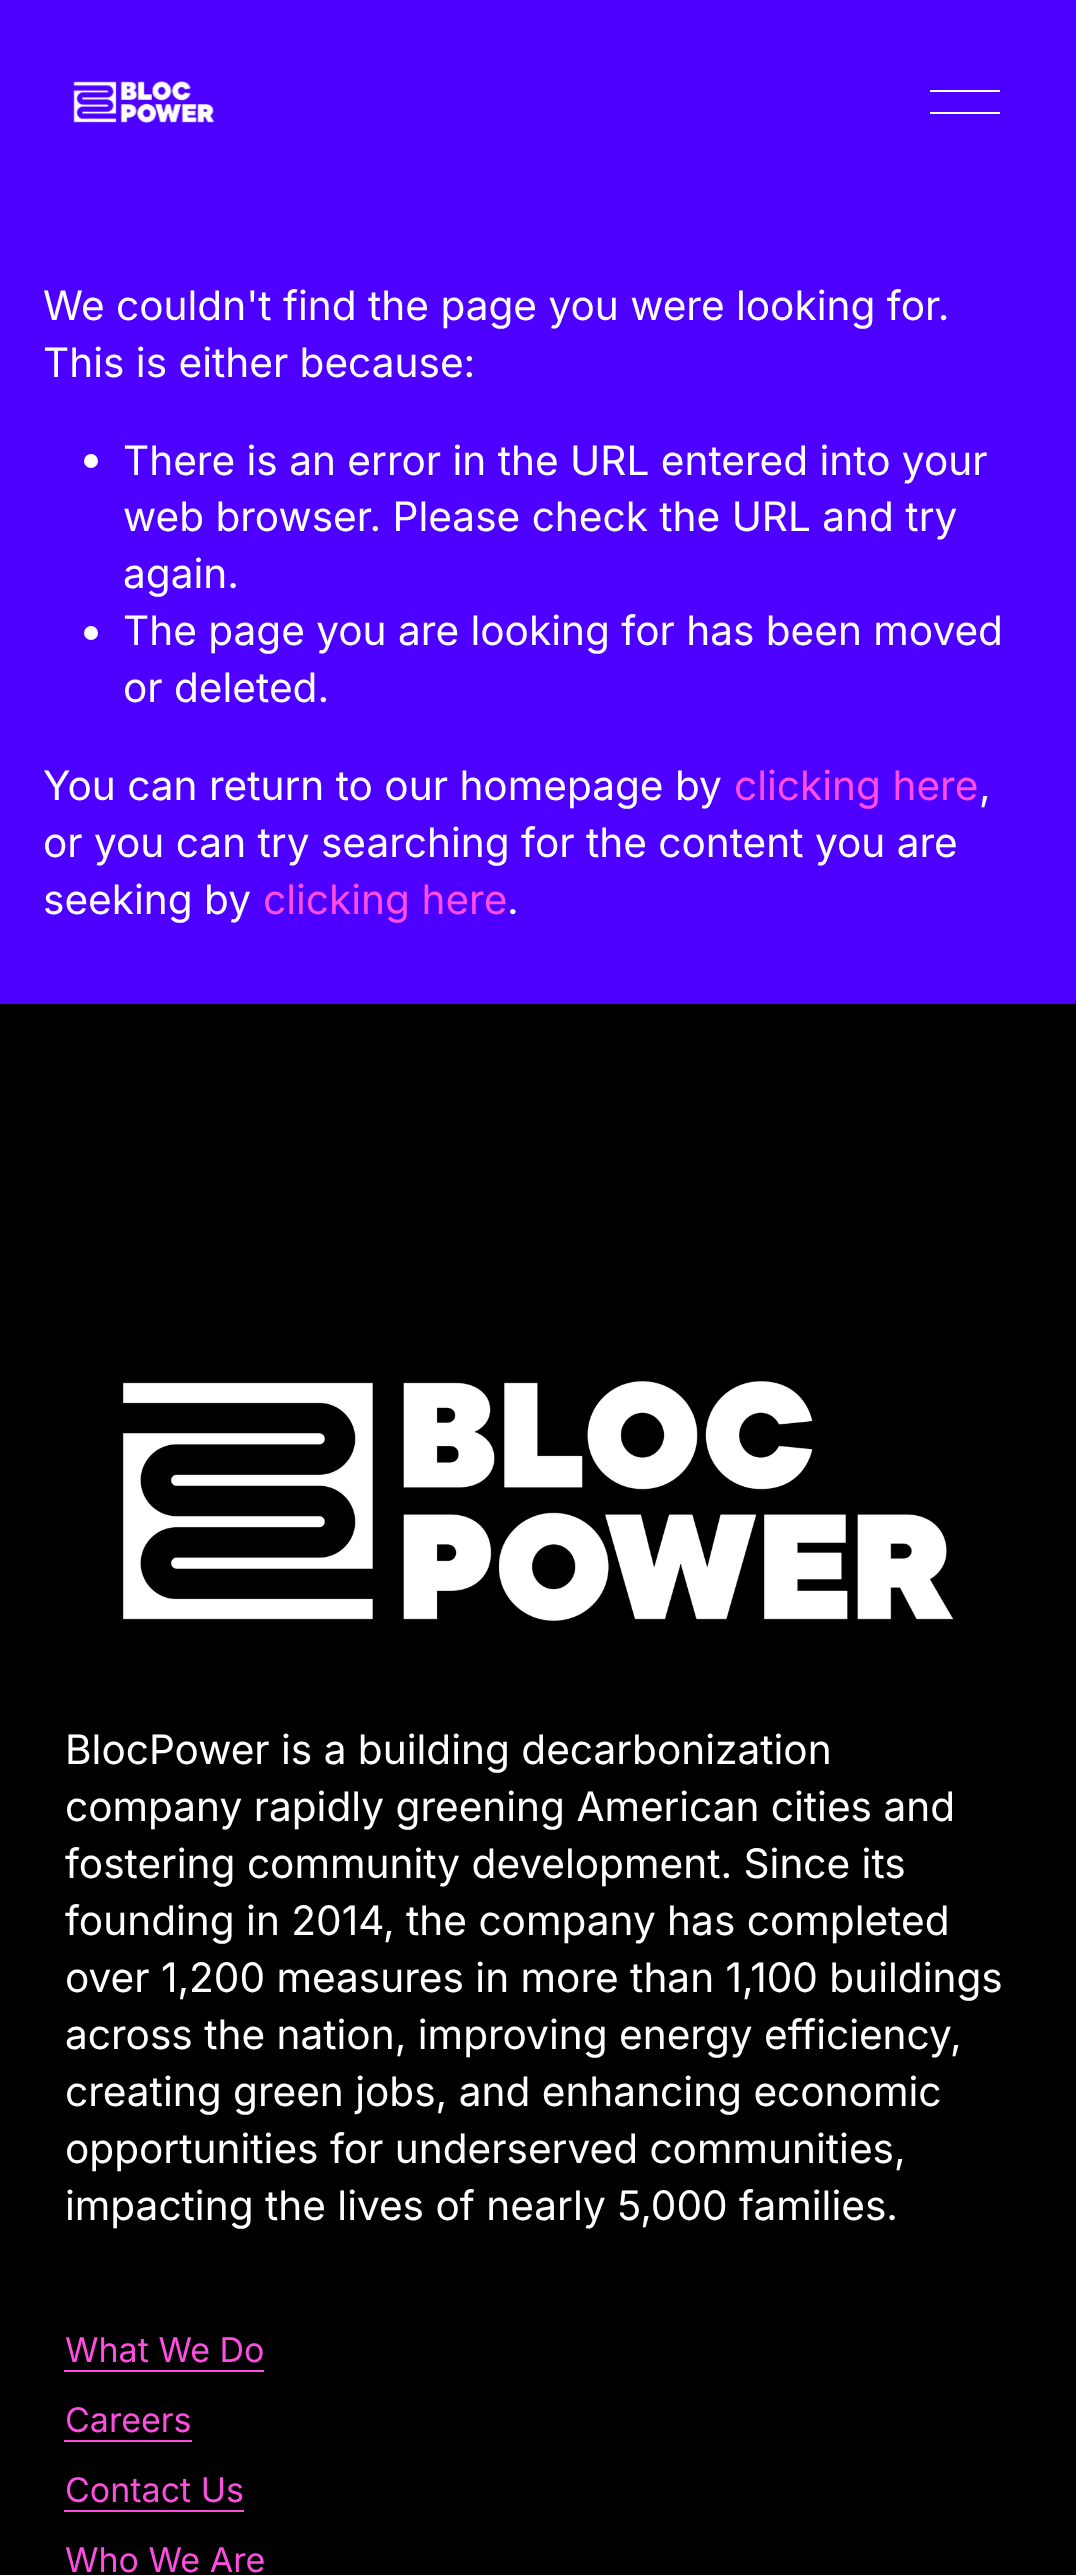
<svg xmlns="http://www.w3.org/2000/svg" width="1076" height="2575">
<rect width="100%" height="100%" fill="#4d00ff"/>
<image x="73" y="81" width="142" height="42" href="media/1.png"/>
<rect x="930" y="90" width="70" height="2" fill="#fff"/>
<rect x="930" y="112" width="70" height="2" fill="#fff"/>
<text x="43" y="320" style="font-family:Inter;font-size:40.6px;fill:#fff">We couldn't find the page you were looking for.</text>
<text x="43" y="377" style="font-family:Inter;font-size:40.6px;fill:#fff">This is either because:</text>
<circle cx="91" cy="461" r="7" fill="#fff"/>
<text x="123" y="475" style="font-family:Inter;font-size:40.6px;fill:#fff">There is an error in the URL entered into your</text>
<text x="123" y="531" style="font-family:Inter;font-size:40.6px;fill:#fff">web browser. Please check the URL and try</text>
<text x="123" y="588" style="font-family:Inter;font-size:40.6px;fill:#fff">again.</text>
<circle cx="91" cy="633" r="7" fill="#fff"/>
<text x="123" y="645" style="font-family:Inter;font-size:40.6px;fill:#fff">The page you are looking for has been moved</text>
<text x="123" y="702" style="font-family:Inter;font-size:40.6px;fill:#fff">or deleted.</text>
<text x="43" y="800" style="font-family:Inter;font-size:40.6px;fill:#fff">You can return to our homepage by</text>
<text x="734" y="800" style="font-family:Inter;font-size:40.6px;fill:#ff4de1">clicking here</text>
<text x="979" y="800" style="font-family:Inter;font-size:40.6px;fill:#fff">,</text>
<text x="43" y="857" style="font-family:Inter;font-size:40.6px;fill:#fff">or you can try searching for the content you are</text>
<text x="43" y="914" style="font-family:Inter;font-size:40.6px;fill:#fff">seeking by</text>
<text x="263" y="914" style="font-family:Inter;font-size:40.6px;fill:#ff4de1">clicking here</text>
<text x="507" y="914" style="font-family:Inter;font-size:40.6px;fill:#fff">.</text>
<rect y="1004" width="1076" height="1571" fill="#000"/>
<image x="122" y="1381" width="832" height="240" href="media/2.png"/>
<text x="65" y="1764" style="font-family:Inter;font-size:40.6px;fill:#fff">BlocPower is a building decarbonization</text>
<text x="65" y="1821" style="font-family:Inter;font-size:40.6px;fill:#fff">company rapidly greening American cities and</text>
<text x="65" y="1878" style="font-family:Inter;font-size:40.6px;fill:#fff">fostering community development. Since its</text>
<text x="65" y="1935" style="font-family:Inter;font-size:40.6px;fill:#fff">founding in 2014, the company has completed</text>
<text x="65" y="1992" style="font-family:Inter;font-size:40.6px;fill:#fff">over 1,200 measures in more than 1,100 buildings</text>
<text x="65" y="2049" style="font-family:Inter;font-size:40.6px;fill:#fff">across the nation, improving energy efficiency,</text>
<text x="65" y="2106" style="font-family:Inter;font-size:40.6px;fill:#fff">creating green jobs, and enhancing economic</text>
<text x="65" y="2163" style="font-family:Inter;font-size:40.6px;fill:#fff">opportunities for underserved communities,</text>
<text x="65" y="2220" style="font-family:Inter;font-size:40.6px;fill:#fff">impacting the lives of nearly 5,000 families.</text>
<text x="65" y="2362" style="font-family:Inter;font-size:34px;fill:#ff4de1">What We Do</text>
<rect x="64" y="2370" width="200" height="2" fill="#ff4de1"/>
<text x="65" y="2432" style="font-family:Inter;font-size:34px;fill:#ff4de1">Careers</text>
<rect x="64" y="2440" width="128" height="2" fill="#ff4de1"/>
<text x="65" y="2502" style="font-family:Inter;font-size:34px;fill:#ff4de1">Contact Us</text>
<rect x="64" y="2510" width="180" height="2" fill="#ff4de1"/>
<text x="65" y="2572" style="font-family:Inter;font-size:34px;fill:#ff4de1">Who We Are</text>
</svg>
